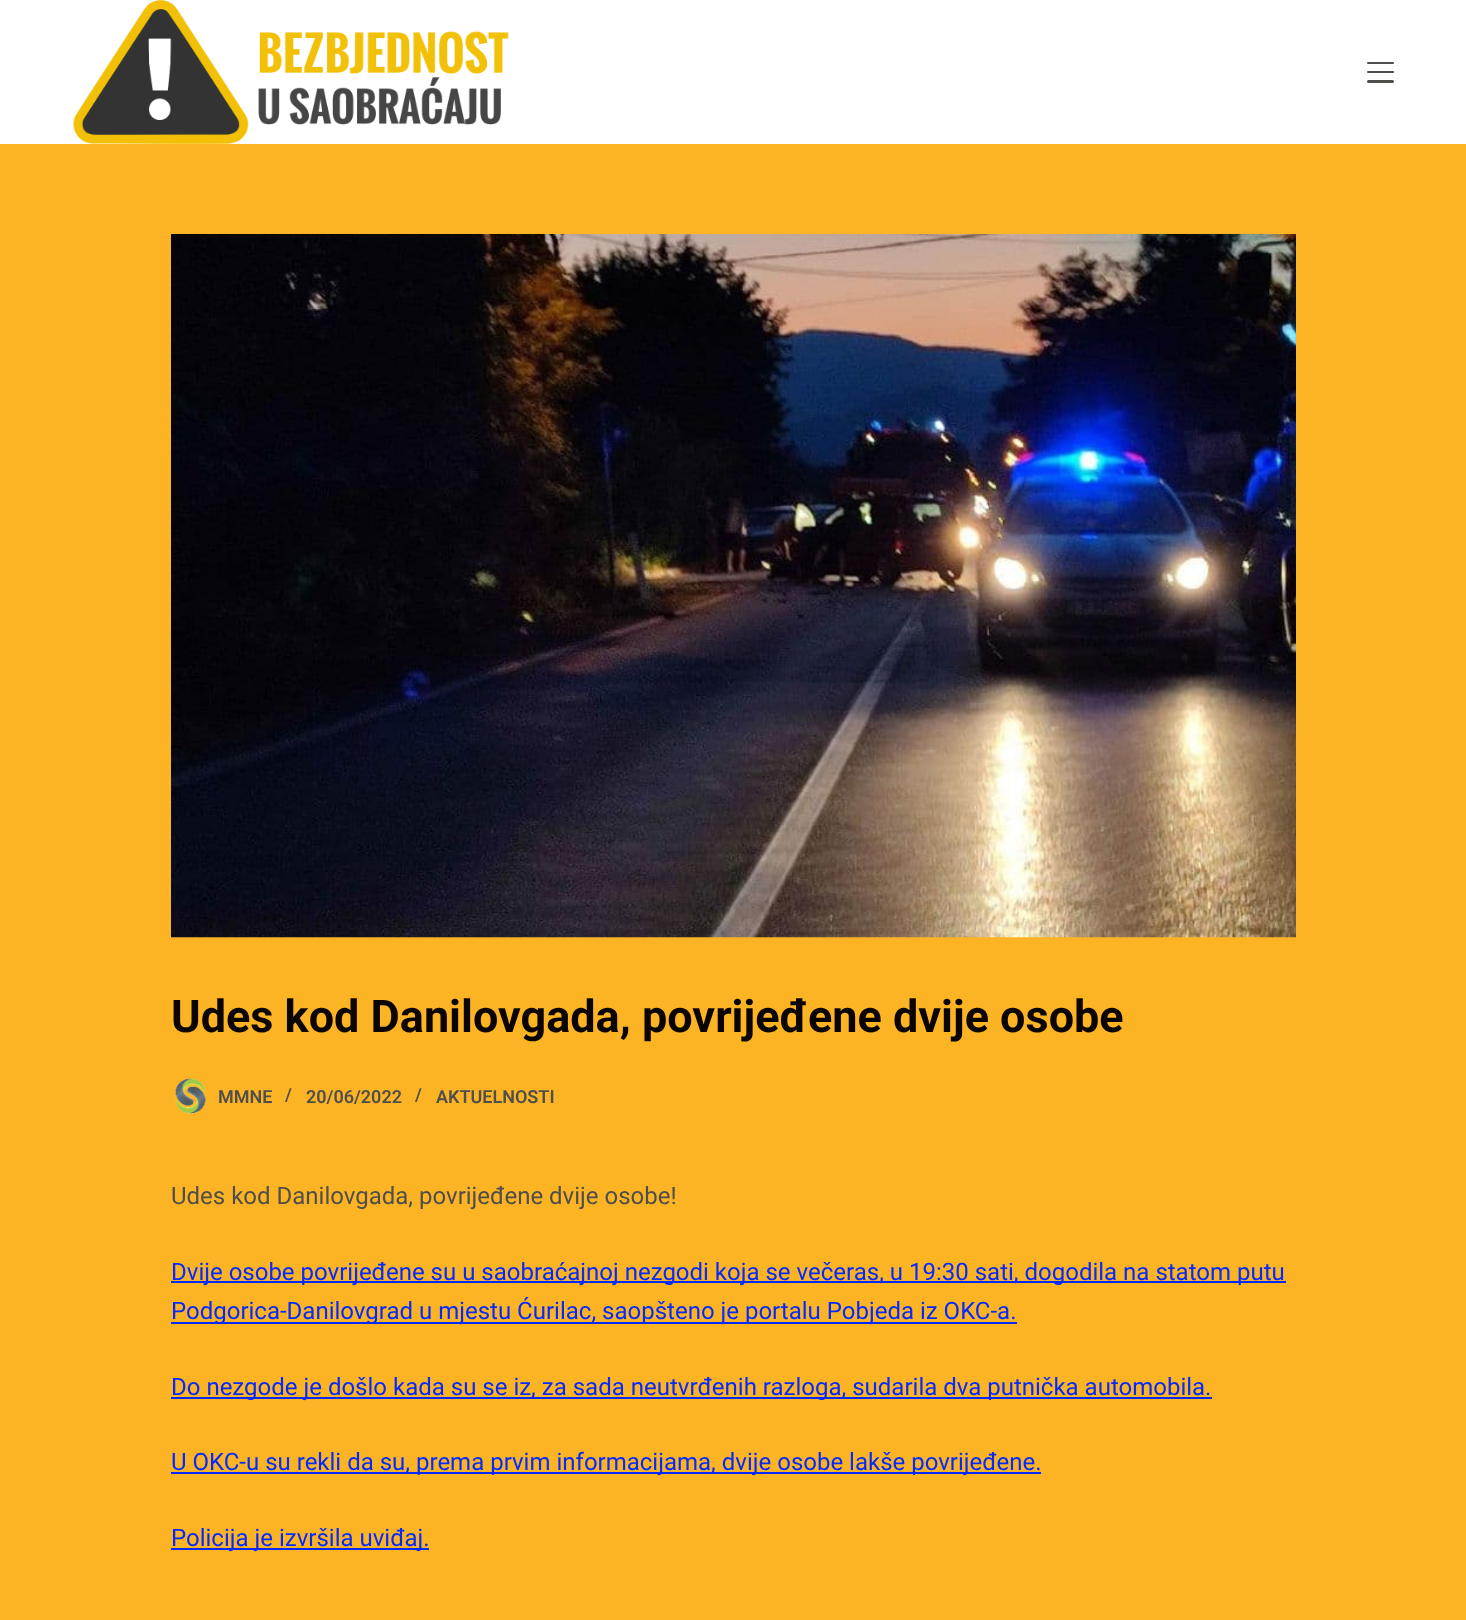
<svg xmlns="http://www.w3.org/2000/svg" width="1466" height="1620">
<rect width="100%" height="100%" fill="#fcb424"/>
<rect width="1466" height="144" fill="#fff"/>
<image x="73" y="0" width="436" height="144" href="media/1.png"/>
<rect x="1367" y="62" width="27" height="2" rx="1" fill="#504e4a"/>
<rect x="1367" y="71" width="27" height="2" rx="1" fill="#504e4a"/>
<rect x="1367" y="80" width="27" height="3" rx="1.5" fill="#504e4a"/>
<image x="171" y="234" width="1125" height="704" href="media/2.png"/>
<text x="171" y="1032" style="font-family:Roboto;font-size:45px;font-weight:bold;fill:#0a0500">Udes kod Danilovgada, povrijeđene dvije osobe</text>
<image x="175" y="1078" width="31" height="36" href="media/3.png"/>
<text x="218" y="1103" style="font-family:Roboto;font-size:18px;font-weight:600;fill:#504e4a">MMNE</text>
<text x="285" y="1101" style="font-family:Roboto;font-size:18px;font-weight:600;fill:#504e4a">/</text>
<text x="306" y="1103" style="font-family:Roboto;font-size:18px;font-weight:600;fill:#504e4a">20/06/2022</text>
<text x="415" y="1101" style="font-family:Roboto;font-size:18px;font-weight:600;fill:#504e4a">/</text>
<text x="436" y="1103" style="font-family:Roboto;font-size:18px;font-weight:600;fill:#504e4a">AKTUELNOSTI</text>
<text x="171" y="1204" style="font-family:Roboto;font-size:24px;fill:#504e4a">Udes kod Danilovgada, povrijeđene dvije osobe!</text>
<rect x="171" y="1281" width="1115" height="2" fill="#052aff"/>
<text x="171" y="1280" style="font-family:Roboto;font-size:24px;fill:#052aff">Dvije osobe povrijeđene su u saobraćajnoj nezgodi koja se večeras, u 19:30 sati, dogodila na statom putu</text>
<rect x="171" y="1322" width="846" height="2" fill="#052aff"/>
<text x="171" y="1319" style="font-family:Roboto;font-size:24px;fill:#052aff">Podgorica-Danilovgrad u mjestu Ćurilac, saopšteno je portalu Pobjeda iz OKC-a.</text>
<rect x="171" y="1397" width="1041" height="2" fill="#052aff"/>
<text x="171" y="1395" style="font-family:Roboto;font-size:24px;fill:#052aff">Do nezgode je došlo kada su se iz, za sada neutvrđenih razloga, sudarila dva putnička automobila.</text>
<rect x="171" y="1472" width="870" height="2" fill="#052aff"/>
<text x="171" y="1470" style="font-family:Roboto;font-size:24px;fill:#052aff">U OKC-u su rekli da su, prema prvim informacijama, dvije osobe lakše povrijeđene.</text>
<rect x="171" y="1548" width="258" height="2" fill="#052aff"/>
<text x="171" y="1546" style="font-family:Roboto;font-size:24px;fill:#052aff">Policija je izvršila uviđaj.</text>
</svg>
